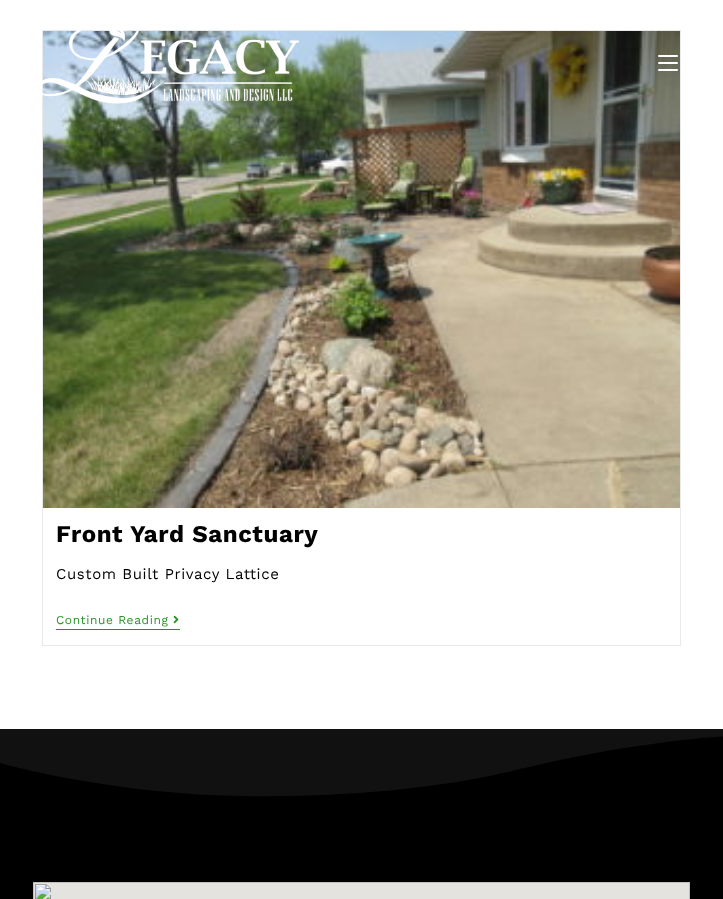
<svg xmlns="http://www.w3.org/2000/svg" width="723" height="899">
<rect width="100%" height="100%" fill="#fff"/>
<rect x="42.5" y="30.5" width="638" height="615" fill="none" stroke="#e9e9e9"/>
<image x="43" y="31" width="637" height="477" href="media/2.png"/>
<image x="42" y="30" width="257" height="74" href="media/1.png"/>
<rect x="658" y="69" width="20" height="2" rx="1" fill="#fff"/>
<rect x="658" y="55" width="20" height="2" rx="1" fill="#fff"/>
<rect x="658" y="62" width="20" height="2" rx="1" fill="#fff"/>
<text x="56" y="542" style="font-family:Work Sans;font-size:24px;font-weight:bold;letter-spacing:0.6px;fill:#000">Front Yard Sanctuary</text>
<text x="56" y="579" style="font-family:Work Sans;font-size:15px;letter-spacing:0.6px;fill:#000">Custom Built Privacy Lattice</text>
<rect x="56" y="629" width="124" height="1" fill="#279324"/>
<text x="56" y="624" style="font-family:Work Sans;font-size:12px;letter-spacing:0.6px;fill:#279324">Continue Reading</text>
<image x="173" y="615" width="6" height="9" href="media/3.png"/>
<rect y="736" width="723" height="163" fill="#000"/>
<path d="M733 736c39-3 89 1 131 6c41 6 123 26 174 40c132 35 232 49 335 55c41 2 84 4 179-3c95-7 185-28 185-28v-77h-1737v34c0 0 125 36 275 33c68 0 161-7 233-24c37-9 90-21 138-27c47-7 69-8 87-9z" fill="#111"/>
<image x="33" y="882" width="657" height="17" href="media/4.png"/>
</svg>
